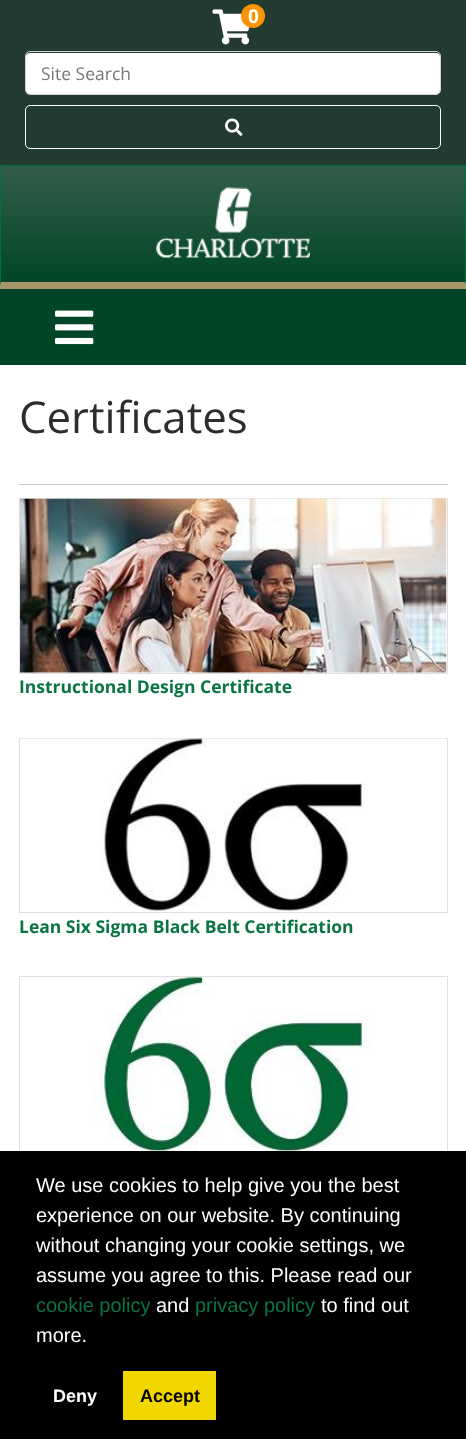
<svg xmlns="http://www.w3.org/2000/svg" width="466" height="1439">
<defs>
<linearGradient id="g1" gradientUnits="userSpaceOnUse" x1="233" y1="166" x2="233" y2="283"><stop offset="0" stop-color="#335d4b"/><stop offset="1" stop-color="#004525"/></linearGradient>
</defs>
<rect width="100%" height="100%" fill="#fff"/>
<rect width="466" height="165" fill="#223a30"/>
<image x="212" y="9" width="38" height="36" href="media/1.png"/>
<circle cx="253" cy="16" r="12" fill="#f89406"/>
<text x="248" y="23" style="font-family:Open Sans;font-size:19px;font-weight:bold;fill:#fff">0</text>
<rect x="26" y="53" width="414" height="41" rx="4" fill="#fff"/>
<rect x="25.5" y="51.5" width="415" height="43" rx="4.5" fill="none" stroke="#ced4da"/>
<text x="41" y="80" style="font-family:Open Sans;font-size:17.5px;fill:#777">Site Search</text>
<rect x="25.5" y="105.5" width="415" height="43" rx="4.5" fill="none" stroke="#fff"/>
<image x="225" y="118" width="18" height="18" href="media/2.png"/>
<rect x="1" y="166" width="464" height="116" fill="url(#g1)"/>
<rect y="165" width="466" height="1" fill="#00703c"/>
<path d="M466 165v124l-1-7v-116z" fill="#00703c"/>
<path d="M466 289h-466l1-7h464z" fill="#a69667"/>
<path d="M0 289v-124l1 1v116z" fill="#00703c"/>
<image x="156" y="187" width="154" height="71" href="media/3.png"/>
<rect y="289" width="466" height="76" fill="#004525"/>
<image x="55" y="310" width="39" height="35" href="media/4.png"/>
<rect x="19" y="484" width="429" height="1" fill="#ccc"/>
<text x="19" y="433" style="font-family:Open Sans;font-size:43.75px;fill:#2d2d2d">Certificates</text>
<rect x="19.5" y="498.5" width="428" height="175" fill="none" stroke="#e0e0e0"/>
<image x="20" y="498" width="427" height="175" href="media/5.png"/>
<text x="19" y="693" style="font-family:Open Sans;font-size:17.5px;font-weight:bold;fill:#0a7543">Instructional Design Certificate</text>
<rect x="19.5" y="738.5" width="428" height="174" fill="none" stroke="#e0e0e0"/>
<image x="20" y="738" width="426" height="174" href="media/6.png"/>
<text x="19" y="933" style="font-family:Open Sans;font-size:17.5px;font-weight:bold;fill:#0a7543">Lean Six Sigma Black Belt Certification</text>
<rect x="19.5" y="976.5" width="428" height="176" fill="none" stroke="#e0e0e0"/>
<image x="91" y="977" width="281" height="174" href="media/7.png"/>
<rect y="1151" width="466" height="288" fill="#000"/>
<text x="36" y="1192" style="font-family:Liberation Sans;font-size:20px;fill:#fff">We use cookies to help give you the best</text>
<text x="36" y="1222" style="font-family:Liberation Sans;font-size:20px;fill:#fff">experience on our website. By continuing</text>
<text x="36" y="1252" style="font-family:Liberation Sans;font-size:20px;fill:#fff">without changing your cookie settings, we</text>
<text x="36" y="1282" style="font-family:Liberation Sans;font-size:20px;fill:#fff">assume you agree to this. Please read our</text>
<text x="36" y="1312" style="font-family:Liberation Sans;font-size:20px;fill:#0a7543">cookie policy</text>
<text x="156" y="1312" style="font-family:Liberation Sans;font-size:20px;fill:#fff">and</text>
<text x="195" y="1312" style="font-family:Liberation Sans;font-size:20px;fill:#0a7543">privacy policy</text>
<text x="321" y="1312" style="font-family:Liberation Sans;font-size:20px;fill:#fff">to find out</text>
<text x="36" y="1342" style="font-family:Liberation Sans;font-size:20px;fill:#fff">more.</text>
<text x="53" y="1402" style="font-family:Liberation Sans;font-size:18px;font-weight:bold;fill:#fff">Deny</text>
<rect x="123" y="1371" width="93" height="49" fill="#f1d600"/>
<text x="140" y="1402" style="font-family:Liberation Sans;font-size:18px;font-weight:bold;fill:#000">Accept</text>
</svg>
